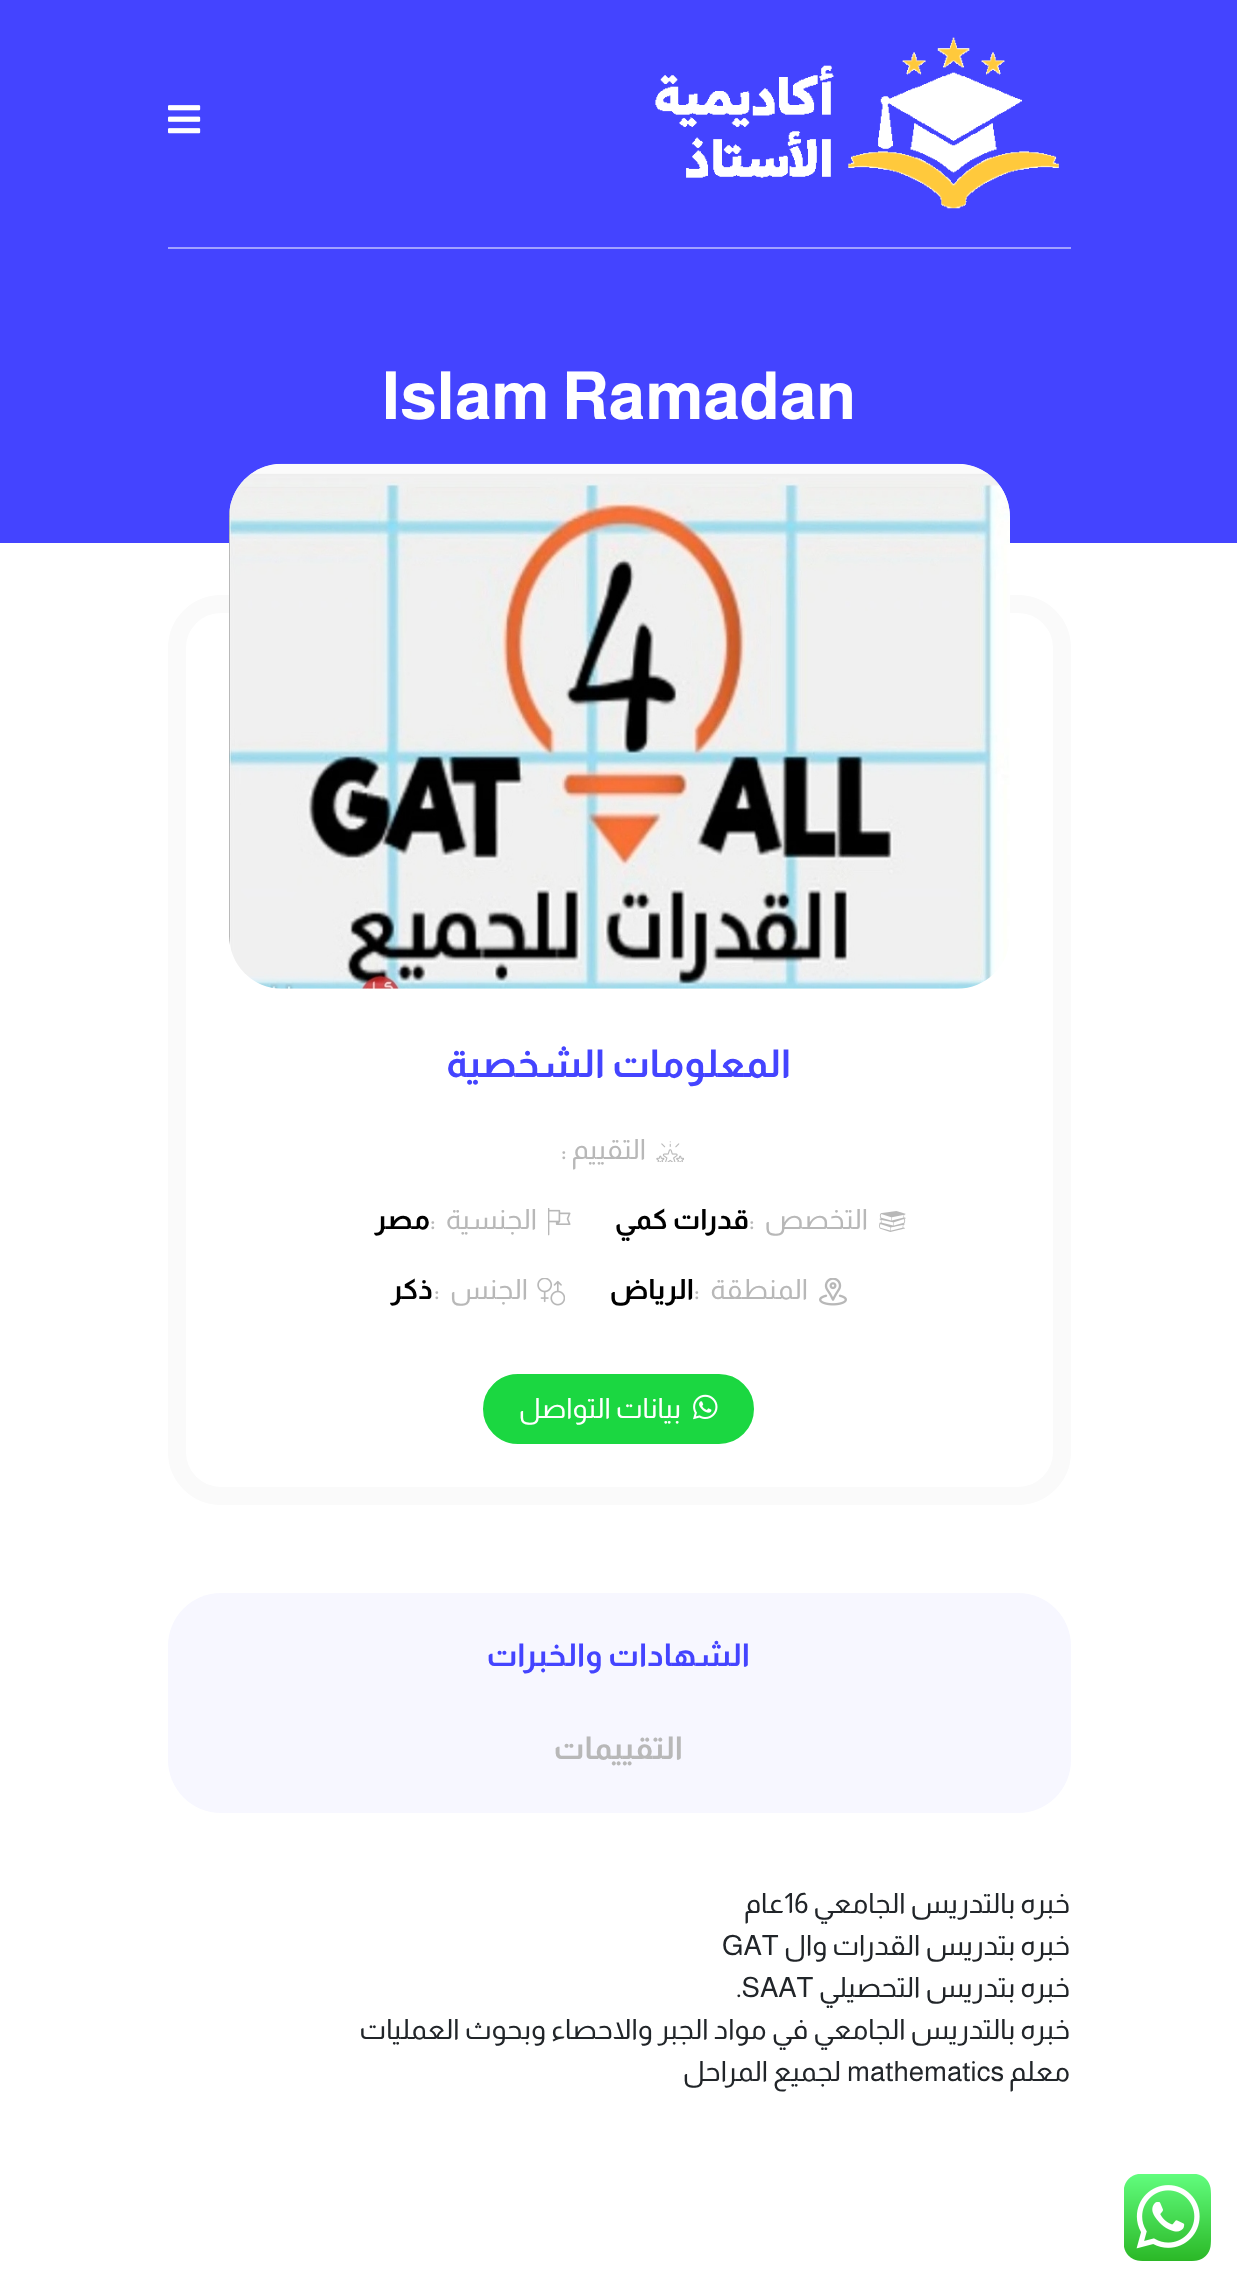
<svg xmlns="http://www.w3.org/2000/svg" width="1237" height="2287">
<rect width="100%" height="100%" fill="#fff"/>
<rect width="1237" height="543" fill="#44f"/>
<rect x="168" y="247" width="903" height="2" fill="#a2a2ff"/>
<image x="655" y="37" width="404" height="172" href="media/1.png"/>
<image x="168" y="105" width="33" height="29" href="media/2.png"/>
<text x="381" y="419" style="font-family:Almarai;font-size:66.5px;font-weight:bold;fill:#fff">Islam Ramadan</text>
<rect x="177" y="604" width="885" height="892" rx="44" fill="none" stroke="#fafafa" stroke-width="18"/>
<rect x="229" y="464" width="781" height="525" rx="53" fill="#fff"/>
<image x="229" y="463" width="781" height="526" href="media/3.png"/>
<text x="791" y="1077" style="font-family:Almarai;font-size:38.5px;font-weight:bold;direction:rtl;fill:#44f">المعلومات الشخصية</text>
<image x="656" y="1141" width="28" height="21" href="media/4.png"/>
<text x="646" y="1159" style="font-family:Almarai;font-size:28px;direction:rtl;fill:#b8b8b8">التقييم</text>
<text x="561" y="1159" style="font-family:Almarai;font-size:28px;fill:#b8b8b8">:</text>
<image x="879" y="1211" width="27" height="21" href="media/5.png"/>
<text x="868" y="1229" style="font-family:Almarai;font-size:28px;direction:rtl;fill:#b8b8b8">التخصص</text>
<text x="749" y="1229" style="font-family:Almarai;font-size:28px;fill:#b8b8b8">:</text>
<text x="749" y="1229" style="font-family:Almarai;font-size:28px;font-weight:bold;direction:rtl;fill:#000">قدرات كمي</text>
<image x="548" y="1208" width="23" height="28" href="media/6.png"/>
<text x="537" y="1229" style="font-family:Almarai;font-size:28px;direction:rtl;fill:#b8b8b8">الجنسية</text>
<text x="430" y="1229" style="font-family:Almarai;font-size:28px;fill:#b8b8b8">:</text>
<text x="430" y="1229" style="font-family:Almarai;font-size:28px;font-weight:bold;direction:rtl;fill:#000">مصر</text>
<image x="819" y="1278" width="28" height="28" href="media/7.png"/>
<text x="808" y="1299" style="font-family:Almarai;font-size:28px;direction:rtl;fill:#b8b8b8">المنطقة</text>
<text x="694" y="1299" style="font-family:Almarai;font-size:28px;fill:#b8b8b8">:</text>
<text x="694" y="1299" style="font-family:Almarai;font-size:28px;font-weight:bold;direction:rtl;fill:#000">الرياض</text>
<image x="537" y="1278" width="28" height="28" href="media/8.png"/>
<text x="528" y="1299" style="font-family:Almarai;font-size:28px;direction:rtl;fill:#b8b8b8">الجنس</text>
<text x="434" y="1299" style="font-family:Almarai;font-size:28px;fill:#b8b8b8">:</text>
<text x="433" y="1299" style="font-family:Almarai;font-size:28px;font-weight:bold;direction:rtl;fill:#000">ذكر</text>
<rect x="484" y="1375" width="269" height="68" rx="34" fill="#1bd741" stroke="#1bd741" stroke-width="2"/>
<image x="693" y="1394" width="25" height="26" href="media/9.png"/>
<text x="681" y="1418" style="font-family:Almarai;font-size:28px;direction:rtl;fill:#fff">بيانات التواصل</text>
<rect x="168" y="1593" width="903" height="220" rx="53" fill="#f7f7ff"/>
<text x="750" y="1666" style="font-family:Almarai;font-size:31.5px;font-weight:bold;direction:rtl;fill:#44f">الشهادات والخبرات</text>
<text x="683" y="1759" style="font-family:Almarai;font-size:31.5px;font-weight:bold;direction:rtl;fill:#b8b8b8">التقييمات</text>
<text x="1070" y="1913" style="font-family:Almarai;font-size:28px;direction:rtl;fill:#212529">خبره بالتدريس الجامعي</text>
<text x="784" y="1913" style="font-family:Almarai;font-size:28px;fill:#212529">16</text>
<text x="784" y="1913" style="font-family:Almarai;font-size:28px;direction:rtl;fill:#212529">عام</text>
<text x="1070" y="1955" style="font-family:Almarai;font-size:28px;direction:rtl;fill:#212529">خبره بتدريس القدرات وال</text>
<text x="722" y="1955" style="font-family:Almarai;font-size:28px;fill:#212529">GAT</text>
<text x="1070" y="1997" style="font-family:Almarai;font-size:28px;direction:rtl;fill:#212529">خبره بتدريس التحصيلي</text>
<text x="736" y="1997" style="font-family:Almarai;font-size:28px;fill:#212529">.SAAT</text>
<text x="1070" y="2039" style="font-family:Almarai;font-size:28px;direction:rtl;fill:#212529">خبره بالتدريس الجامعي في مواد الجبر والاحصاء وبحوث العمليات</text>
<text x="1070" y="2081" style="font-family:Almarai;font-size:28px;direction:rtl;fill:#212529">معلم</text>
<text x="847" y="2081" style="font-family:Almarai;font-size:28px;fill:#212529">mathematics</text>
<text x="841" y="2081" style="font-family:Almarai;font-size:28px;direction:rtl;fill:#212529">لجميع المراحل</text>
<image x="1124" y="2174" width="87" height="87" href="media/10.png"/>
</svg>
